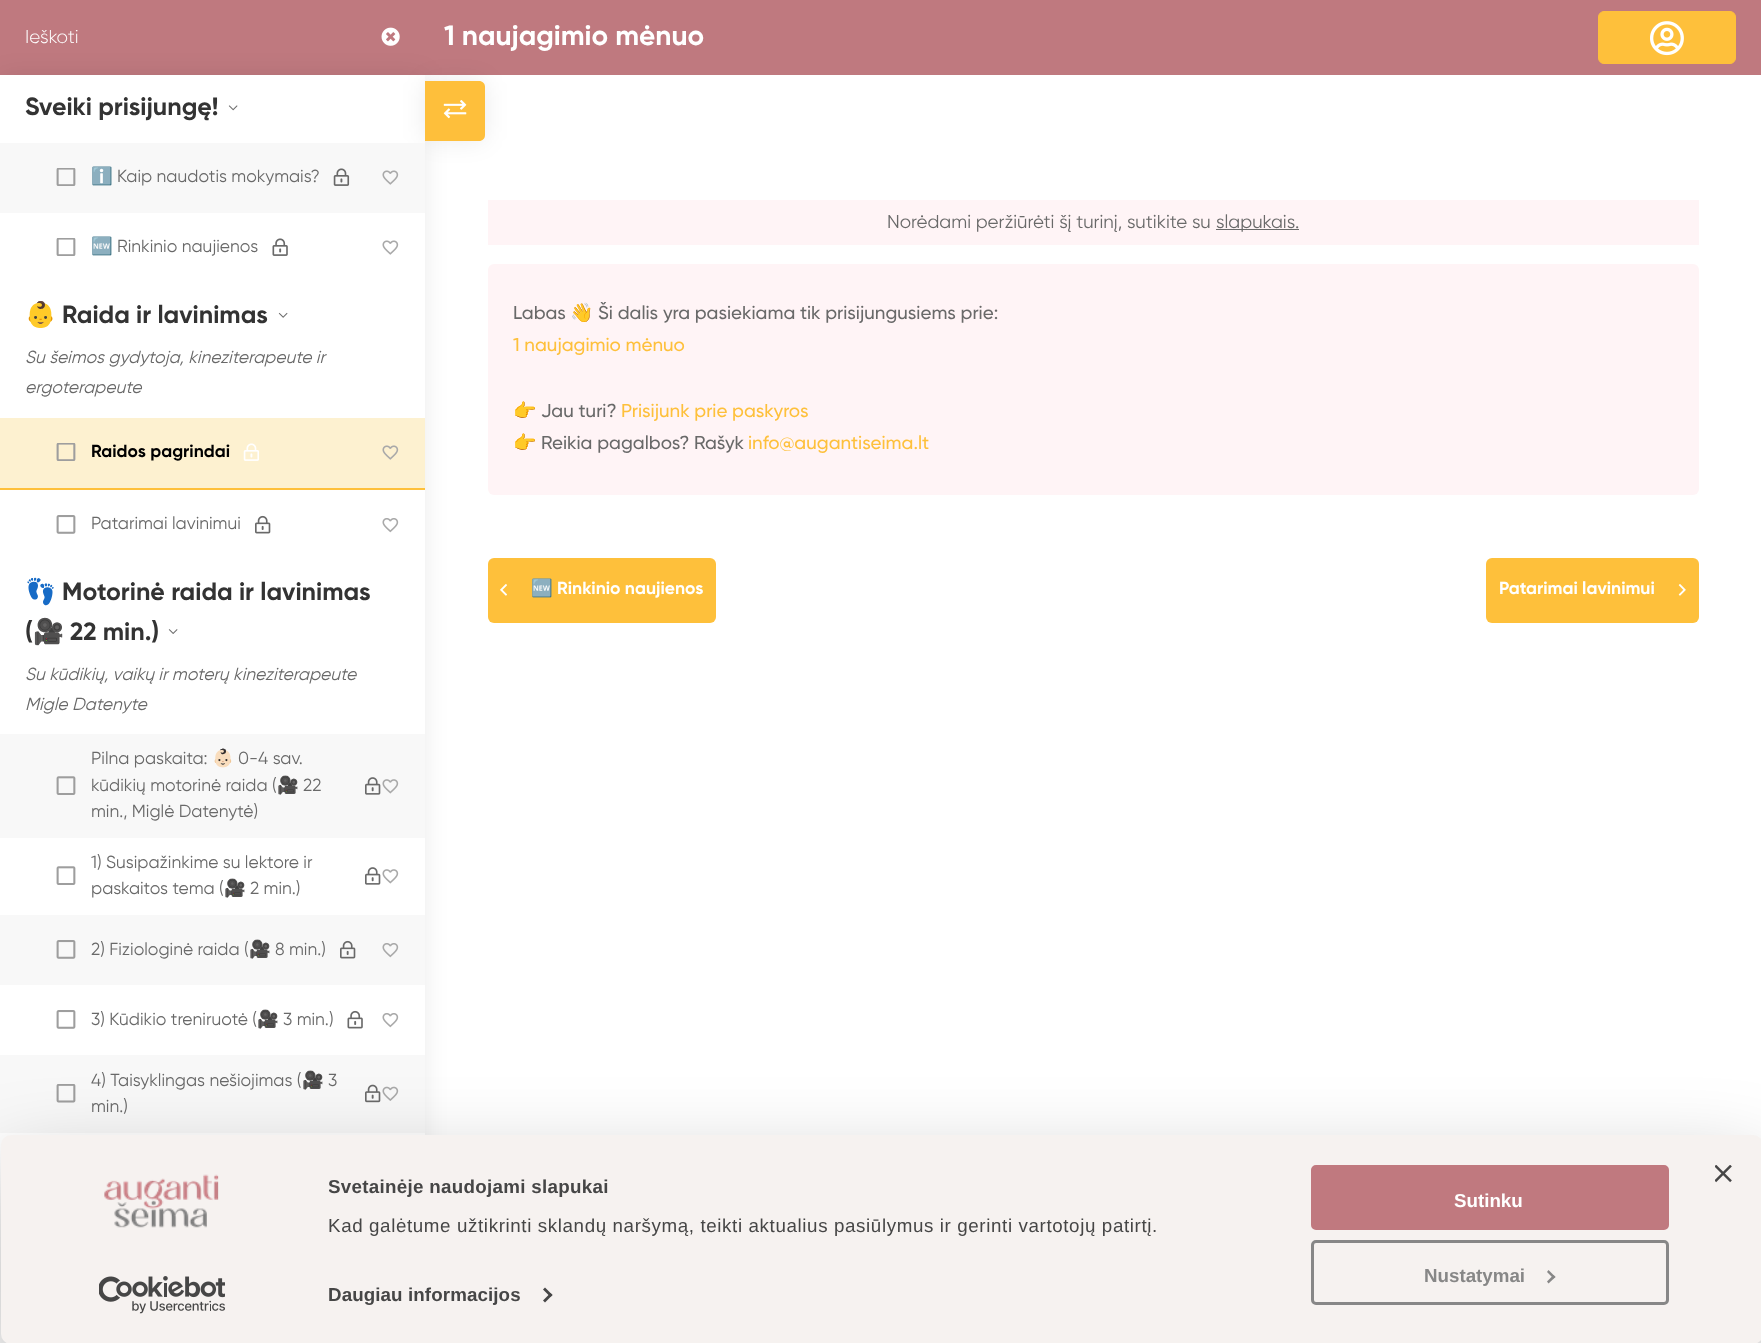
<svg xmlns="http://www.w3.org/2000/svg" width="1761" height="1343">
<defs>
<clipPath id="clip1"><rect x="329" y="1173" width="975" height="68"/></clipPath>
</defs>
<rect width="100%" height="100%" fill="#fff"/>
<rect width="1761" height="75" fill="#bf797f"/>
<text x="25" y="43" style="font-family:Gilroy;font-size:18.75px;font-weight:300;fill:#fff">Ieškoti</text>
<image x="381" y="27" width="19" height="19" href="media/1.png"/>
<text x="444" y="45" style="font-family:Gilroy;font-size:28px;font-weight:bold;fill:#fff">1 naujagimio mėnuo</text>
<rect x="1598.5" y="11.5" width="137" height="52" rx="5.5" fill="#fec03b" stroke="#fec03b"/>
<image x="1650" y="21" width="34" height="35" href="media/2.png"/>
<rect x="488" y="200" width="1211" height="45" fill="#fff4f6"/>
<text x="887" y="228" style="font-family:Gilroy;font-size:18.75px;fill:#696969">Norėdami peržiūrėti šį turinį, sutikite su</text>
<rect x="1216" y="229" width="83" height="1" fill="#696969"/>
<text x="1216" y="228" style="font-family:Gilroy;font-size:18.75px;fill:#696969">slapukais.</text>
<rect x="488" y="264" width="1211" height="231" rx="6" fill="#fff4f6"/>
<text x="513" y="319" style="font-family:Gilroy;font-size:18.75px;font-weight:500;fill:#696969">Labas</text>
<text x="570" y="319" style="font-family:Noto Color Emoji;font-size:18.75px;fill:#696969">👋</text>
<text x="598" y="319" style="font-family:Gilroy;font-size:18.75px;font-weight:500;fill:#696969">Ši dalis yra pasiekiama tik prisijungusiems prie:</text>
<text x="513" y="351" style="font-family:Gilroy;font-size:18.75px;font-weight:500;fill:#fec03b">1 naujagimio mėnuo</text>
<text x="513" y="417" style="font-family:Noto Color Emoji;font-size:18.75px;fill:#696969">👉</text>
<text x="541" y="417" style="font-family:Gilroy;font-size:18.75px;font-weight:500;fill:#696969">Jau turi?</text>
<text x="621" y="417" style="font-family:Gilroy;font-size:18.75px;font-weight:500;fill:#fec03b">Prisijunk prie paskyros</text>
<text x="513" y="449" style="font-family:Noto Color Emoji;font-size:18.75px;fill:#696969">👉</text>
<text x="541" y="449" style="font-family:Gilroy;font-size:18.75px;font-weight:500;fill:#696969">Reikia pagalbos? Rašyk</text>
<text x="748" y="449" style="font-family:Gilroy;font-size:18.75px;font-weight:500;fill:#fec03b">info@augantiseima.lt</text>
<rect x="488" y="558" width="228" height="65" rx="6" fill="#fec03b"/>
<image x="500" y="584" width="7" height="12" href="media/3.png"/>
<text x="531" y="594" style="font-family:Noto Color Emoji;font-size:17.5px;font-weight:bold;fill:#fff">🆕</text>
<text x="557" y="594" style="font-family:Gilroy;font-size:17.5px;font-weight:bold;fill:#fff">Rinkinio naujienos</text>
<rect x="1486" y="558" width="213" height="65" rx="6" fill="#fec03b"/>
<text x="1499" y="594" style="font-family:Gilroy;font-size:17.5px;font-weight:bold;fill:#fff">Patarimai lavinimui</text>
<image x="1678" y="584" width="8" height="12" href="media/4.png"/>
<rect y="75" width="425" height="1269" fill="#00000014" filter="blur(12.5px)"/>
<rect y="75" width="425" height="1268" fill="#fff"/>
<text x="25" y="115" style="font-family:Gilroy;font-size:25px;font-weight:bold;fill:#333">Sveiki prisijungę!</text>
<image x="228" y="105" width="10" height="6" href="media/5.png"/>
<rect x="425" y="81" width="60" height="60" rx="6" fill="#00000014" filter="blur(12.5px)"/>
<rect y="143" width="425" height="70" fill="#f8f8f8"/>
<image x="56" y="168" width="20" height="18" href="media/6.png"/>
<text x="91" y="182" style="font-family:Noto Color Emoji;font-size:17.5px;fill:#696969">ℹ️</text>
<text x="117" y="182" style="font-family:Gilroy;font-size:17.5px;fill:#696969">Kaip naudotis mokymais?</text>
<image x="333" y="168" width="17" height="18" href="media/7.png"/>
<image x="382" y="170" width="17" height="15" href="media/8.png"/>
<image x="56" y="238" width="20" height="18" href="media/9.png"/>
<text x="91" y="252" style="font-family:Noto Color Emoji;font-size:17.5px;fill:#696969">🆕</text>
<text x="117" y="252" style="font-family:Gilroy;font-size:17.5px;fill:#696969">Rinkinio naujienos</text>
<image x="272" y="238" width="16" height="18" href="media/10.png"/>
<image x="382" y="240" width="17" height="15" href="media/11.png"/>
<text x="25" y="323" style="font-family:Noto Color Emoji;font-size:25px;font-weight:bold;fill:#333">👶</text>
<text x="62" y="323" style="font-family:Gilroy;font-size:25px;font-weight:bold;fill:#333">Raida ir lavinimas</text>
<image x="278" y="312" width="10" height="6" href="media/12.png"/>
<text x="25" y="363" style="font-family:Gilroy;font-size:17.5px;font-style:italic;fill:#696969">Su šeimos gydytoja, kineziterapeute ir</text>
<text x="25" y="393" style="font-family:Gilroy;font-size:17.5px;font-style:italic;fill:#696969">ergoterapeute</text>
<rect y="418" width="425" height="70" fill="#fdf1d0"/>
<rect y="488" width="425" height="2" fill="#fec03b"/>
<image x="56" y="443" width="20" height="18" href="media/13.png"/>
<text x="91" y="457" style="font-family:Gilroy;font-size:17.5px;font-weight:bold;fill:#000">Raidos pagrindai</text>
<image x="243" y="443" width="16" height="18" href="media/14.png"/>
<image x="382" y="445" width="17" height="15" href="media/15.png"/>
<image x="56" y="515" width="20" height="19" href="media/16.png"/>
<text x="91" y="529" style="font-family:Gilroy;font-size:17.5px;fill:#696969">Patarimai lavinimui</text>
<image x="255" y="515" width="16" height="19" href="media/17.png"/>
<image x="382" y="518" width="17" height="15" href="media/18.png"/>
<text x="25" y="600" style="font-family:Noto Color Emoji;font-size:25px;font-weight:bold;fill:#333">👣</text>
<text x="62" y="600" style="font-family:Gilroy;font-size:25px;font-weight:bold;fill:#333">Motorinė raida ir lavinimas</text>
<text x="25" y="640" style="font-family:Gilroy;font-size:25px;font-weight:bold;fill:#333">(</text>
<text x="33" y="640" style="font-family:Noto Color Emoji;font-size:25px;font-weight:bold;fill:#333">🎥</text>
<text x="70" y="640" style="font-family:Gilroy;font-size:25px;font-weight:bold;fill:#333">22 min.)</text>
<image x="168" y="629" width="10" height="5" href="media/19.png"/>
<text x="25" y="680" style="font-family:Gilroy;font-size:17.5px;font-style:italic;fill:#696969">Su kūdikių, vaikų ir moterų kineziterapeute</text>
<text x="25" y="710" style="font-family:Gilroy;font-size:17.5px;font-style:italic;fill:#696969">Migle Datenyte</text>
<rect y="734" width="425" height="104" fill="#f8f8f8"/>
<image x="56" y="776" width="20" height="19" href="media/20.png"/>
<text x="91" y="764" style="font-family:Gilroy;font-size:17.5px;fill:#696969">Pilna paskaita:</text>
<text x="212" y="764" style="font-family:Noto Color Emoji;font-size:17.5px;fill:#696969">👶🏻</text>
<text x="238" y="764" style="font-family:Gilroy;font-size:17.5px;fill:#696969">0-4 sav.</text>
<text x="91" y="791" style="font-family:Gilroy;font-size:17.5px;fill:#696969">kūdikių motorinė raida (</text>
<text x="277" y="791" style="font-family:Noto Color Emoji;font-size:17.5px;fill:#696969">🎥</text>
<text x="303" y="791" style="font-family:Gilroy;font-size:17.5px;fill:#696969">22</text>
<text x="91" y="817" style="font-family:Gilroy;font-size:17.5px;fill:#696969">min., Miglė Datenytė)</text>
<image x="365" y="777" width="16" height="18" href="media/21.png"/>
<image x="382" y="779" width="17" height="15" href="media/22.png"/>
<image x="56" y="866" width="20" height="19" href="media/23.png"/>
<text x="91" y="868" style="font-family:Gilroy;font-size:17.5px;fill:#696969">1) Susipažinkime su lektore ir</text>
<text x="91" y="894" style="font-family:Gilroy;font-size:17.5px;fill:#696969">paskaitos tema (</text>
<text x="224" y="894" style="font-family:Noto Color Emoji;font-size:17.5px;fill:#696969">🎥</text>
<text x="250" y="894" style="font-family:Gilroy;font-size:17.5px;fill:#696969">2 min.)</text>
<image x="365" y="867" width="16" height="18" href="media/24.png"/>
<image x="382" y="869" width="17" height="15" href="media/25.png"/>
<rect y="915" width="425" height="70" fill="#f8f8f8"/>
<image x="56" y="940" width="20" height="19" href="media/26.png"/>
<text x="91" y="955" style="font-family:Gilroy;font-size:17.5px;fill:#696969">2) Fiziologinė raida (</text>
<text x="249" y="955" style="font-family:Noto Color Emoji;font-size:17.5px;fill:#696969">🎥</text>
<text x="275" y="955" style="font-family:Gilroy;font-size:17.5px;fill:#696969">8 min.)</text>
<image x="340" y="940" width="16" height="19" href="media/27.png"/>
<image x="382" y="943" width="17" height="15" href="media/28.png"/>
<image x="56" y="1010" width="20" height="19" href="media/16.png"/>
<text x="91" y="1025" style="font-family:Gilroy;font-size:17.5px;fill:#696969">3) Kūdikio treniruotė (</text>
<text x="257" y="1025" style="font-family:Noto Color Emoji;font-size:17.5px;fill:#696969">🎥</text>
<text x="283" y="1025" style="font-family:Gilroy;font-size:17.5px;fill:#696969">3 min.)</text>
<image x="347" y="1010" width="16" height="19" href="media/29.png"/>
<image x="382" y="1013" width="17" height="15" href="media/18.png"/>
<rect y="1055" width="425" height="78" fill="#f8f8f8"/>
<image x="56" y="1084" width="20" height="19" href="media/30.png"/>
<text x="91" y="1086" style="font-family:Gilroy;font-size:17.5px;fill:#696969">4) Taisyklingas nešiojimas (</text>
<text x="302" y="1086" style="font-family:Noto Color Emoji;font-size:17.5px;fill:#696969">🎥</text>
<text x="328" y="1086" style="font-family:Gilroy;font-size:17.5px;fill:#696969">3</text>
<text x="91" y="1112" style="font-family:Gilroy;font-size:17.5px;fill:#696969">min.)</text>
<image x="365" y="1084" width="16" height="19" href="media/31.png"/>
<image x="382" y="1086" width="17" height="15" href="media/32.png"/>
<path d="M425 81h54c3.5 0 6 2.5 6 6v48c0 3.5-2.5 6-6 6h-54z" fill="#febf3b"/>
<image x="443" y="100" width="24" height="19" href="media/33.png"/>
<rect x="1" y="1173" width="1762" height="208" rx="10" fill="#0000004d" filter="blur(44px)"/>
<rect x="1" y="1135" width="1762" height="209" rx="10" fill="#f6f2f0"/>
<image x="104" y="1174" width="115" height="54" href="media/34.png"/>
<image x="99" y="1276" width="126" height="38" href="media/35.png"/>
<g clip-path="url(#clip1)">
<text x="328" y="1193" style="font-family:Liberation Sans;font-size:18.75px;font-weight:bold;letter-spacing:0.3px;fill:#464646">Svetainėje naudojami slapukai</text>
</g>
<text x="328" y="1232" style="font-family:Liberation Sans;font-size:18.75px;letter-spacing:0.62px;fill:#464646">Kad galėtume užtikrinti sklandų naršymą, teikti aktualius pasiūlymus ir gerinti vartotojų patirtį.</text>
<text x="328" y="1301" style="font-family:Liberation Sans;font-size:18.75px;font-weight:bold;letter-spacing:0.1px;fill:#464646">Daugiau informacijos</text>
<path d="M545 1287.5l7.5 7.5l-2 2l-7.5-7.5z" fill="#464646"/>
<path d="M550.5 1293l2 2l-7.5 7.5l-2-2z" fill="#464646"/>
<rect x="1312.5" y="1166.5" width="355" height="62" rx="3.5" fill="#c0797f" stroke="#c0797f" stroke-width="3"/>
<text x="1454" y="1207" style="font-family:Liberation Sans;font-size:18.75px;font-weight:bold;fill:#fff">Sutinku</text>
<rect x="1312.5" y="1241.5" width="355" height="62" rx="3.5" fill="none" stroke="#878787" stroke-width="3"/>
<text x="1424" y="1282" style="font-family:Liberation Sans;font-size:18.75px;font-weight:bold;fill:#878787">Nustatymai</text>
<path d="M1548.5 1270l7 7l-2 1.5l-6.5-6.5z" fill="#878787"/>
<path d="M1553.5 1275l2 2l-7 6.5l-1.5-2z" fill="#878787"/>
<image x="1715" y="1165" width="17" height="18" href="media/36.png"/>
</svg>
